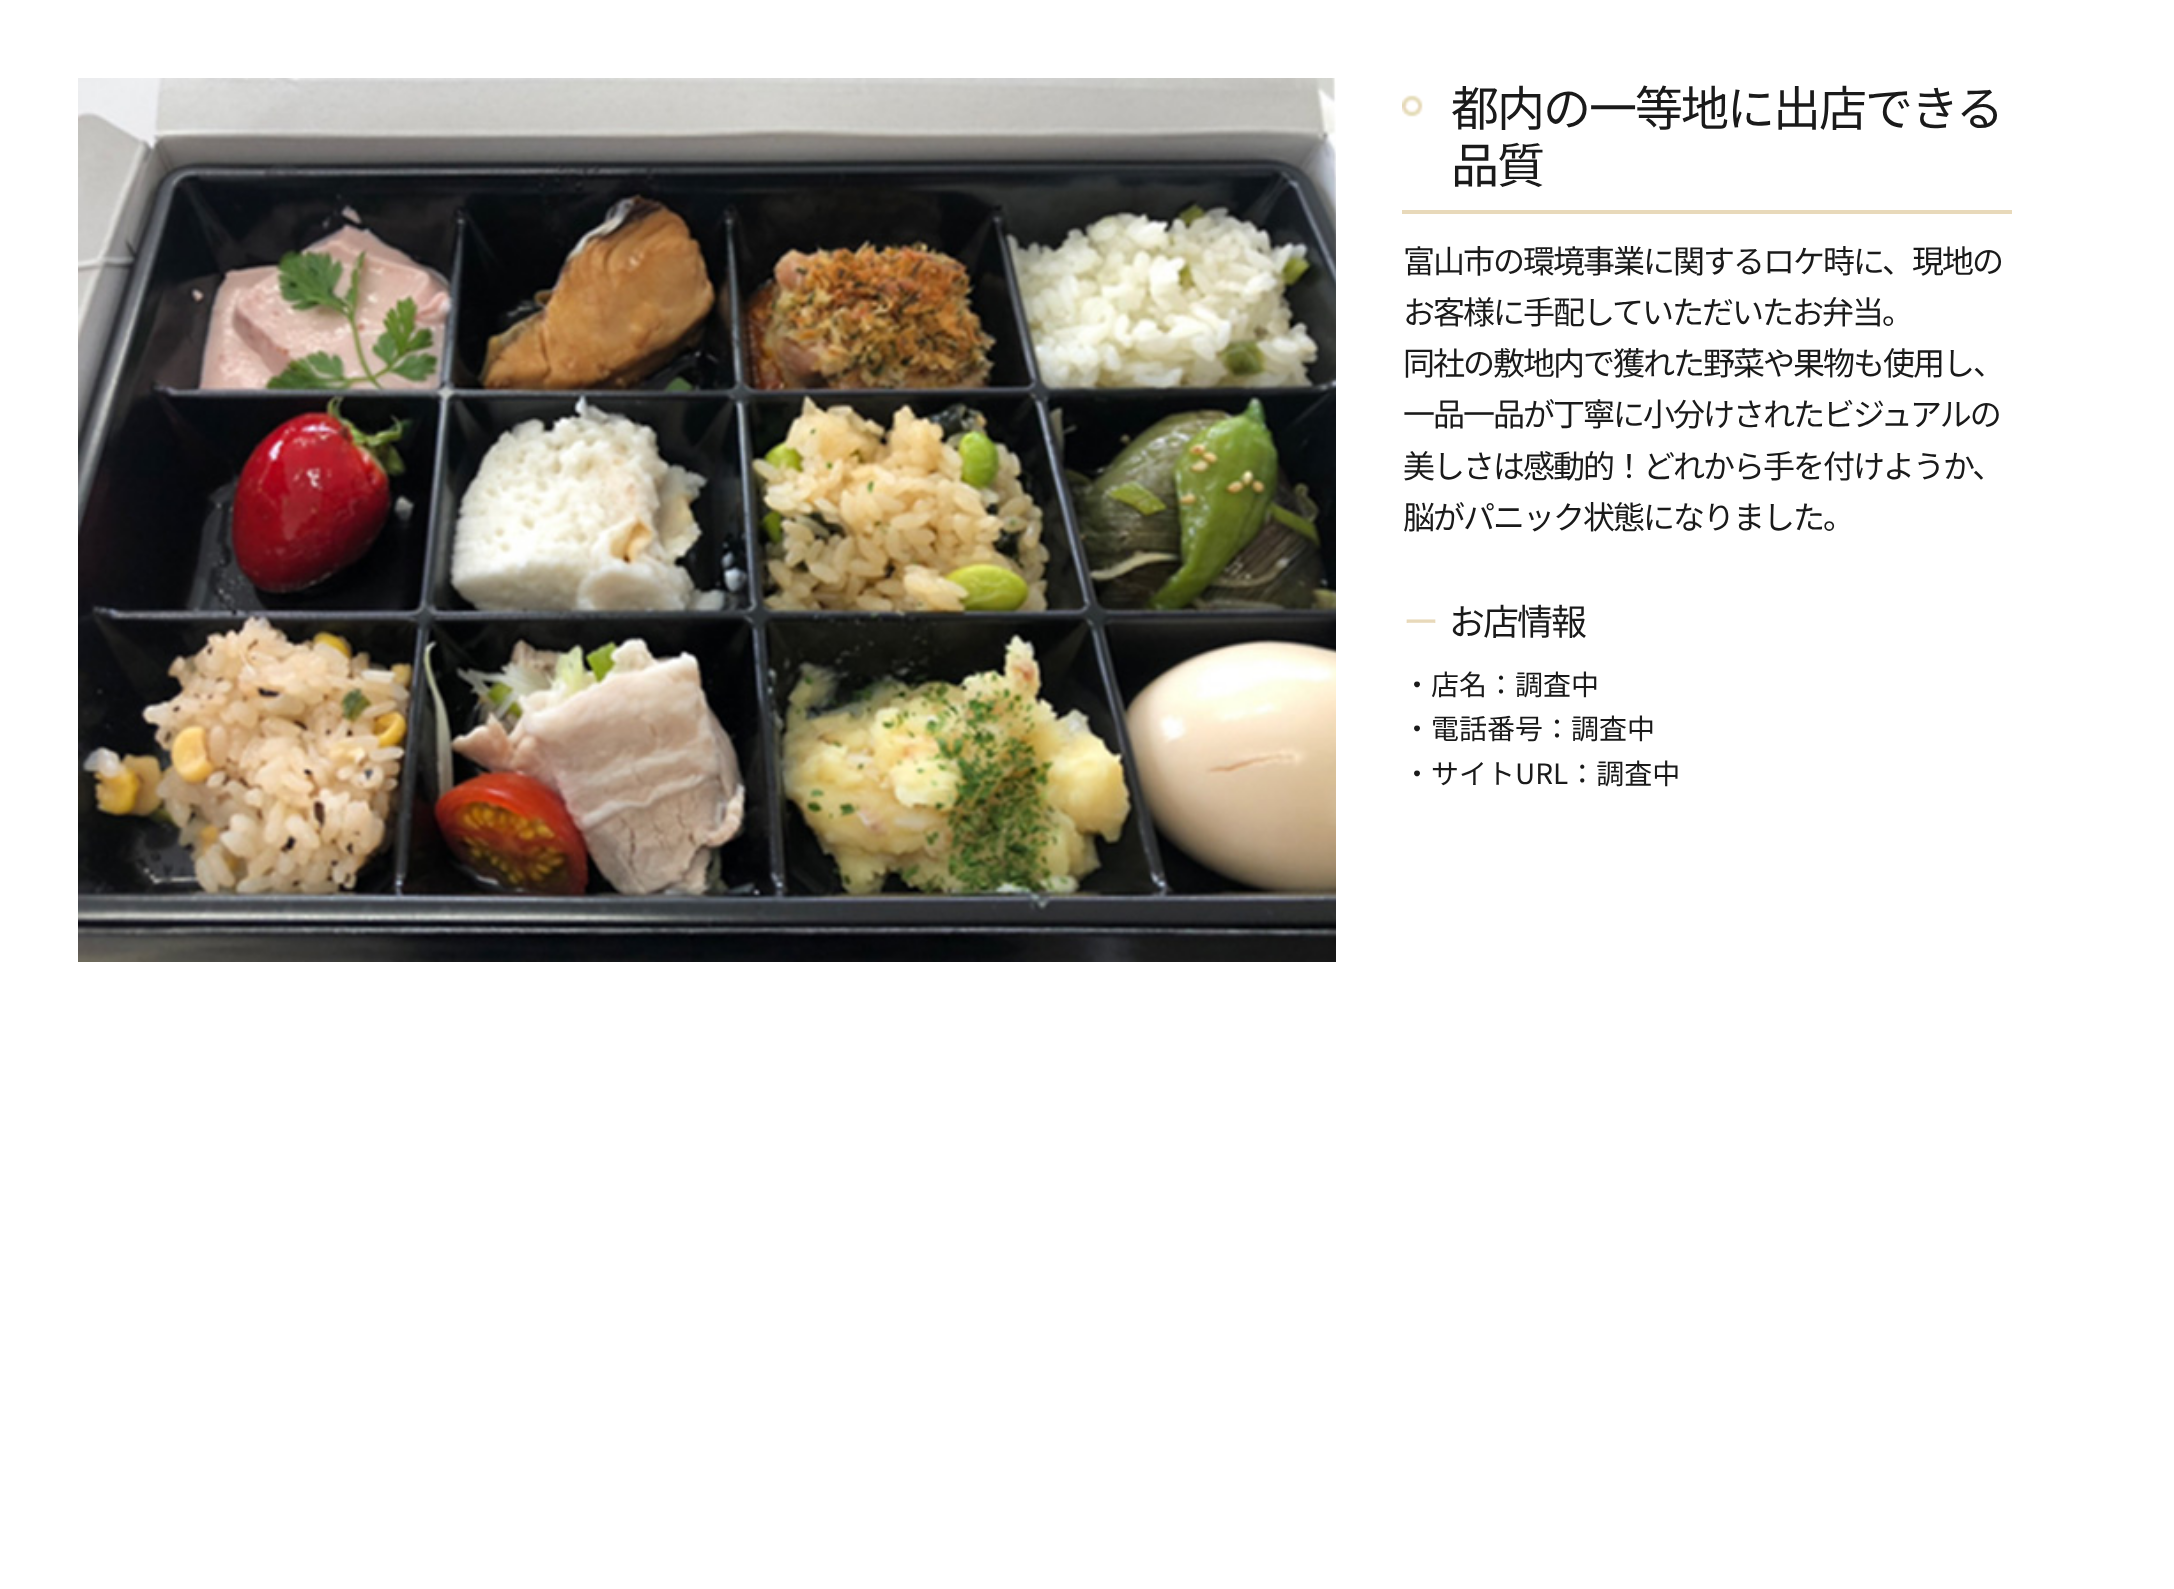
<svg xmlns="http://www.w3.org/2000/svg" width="2174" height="1589">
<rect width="100%" height="100%" fill="#fff"/>
<image x="78" y="78" width="1258" height="884" href="media/1.png"/>
<rect x="1402" y="210" width="610" height="4" fill="#e8d9ba"/>
<image x="1402" y="95" width="21" height="22" href="media/2.png"/>
<text x="1451" y="126" style="font-family:Noto Sans JP;font-size:48px;font-weight:100;letter-spacing:-2px;fill:#1a1a1a">都内の一等地に出店できる</text>
<text x="1451" y="183" style="font-family:Noto Sans JP;font-size:48px;font-weight:100;letter-spacing:-2px;fill:#1a1a1a">品質</text>
<text x="1403" y="273" style="font-family:Noto Sans JP;font-size:32px;font-weight:100;letter-spacing:-2px;fill:#1a1a1a">富山市の環境事業に関するロケ時に、現地の</text>
<text x="1403" y="324" style="font-family:Noto Sans JP;font-size:32px;font-weight:100;letter-spacing:-2px;fill:#1a1a1a">お客様に手配していただいたお弁当。</text>
<text x="1403" y="375" style="font-family:Noto Sans JP;font-size:32px;font-weight:100;letter-spacing:-2px;fill:#1a1a1a">同社の敷地内で獲れた野菜や果物も使用し、</text>
<text x="1403" y="426" style="font-family:Noto Sans JP;font-size:32px;font-weight:100;letter-spacing:-2px;fill:#1a1a1a">一品一品が丁寧に小分けされたビジュアルの</text>
<text x="1403" y="478" style="font-family:Noto Sans JP;font-size:32px;font-weight:100;letter-spacing:-2px;fill:#1a1a1a">美しさは感動的！どれから手を付けようか、</text>
<text x="1403" y="529" style="font-family:Noto Sans JP;font-size:32px;font-weight:100;letter-spacing:-2px;fill:#1a1a1a">脳がパニック状態になりました。</text>
<text x="1403" y="635" style="font-family:Noto Sans JP;font-size:36px;font-weight:100;letter-spacing:-2px;fill:#e8d9ba">ー</text>
<text x="1449" y="635" style="font-family:Noto Sans JP;font-size:36px;font-weight:100;letter-spacing:-2px;fill:#1a1a1a">お店情報</text>
<text x="1403" y="695" style="font-family:Noto Sans JP;font-size:28px;font-weight:100;fill:#1a1a1a">・店名：調査中</text>
<text x="1403" y="739" style="font-family:Noto Sans JP;font-size:28px;font-weight:100;fill:#1a1a1a">・電話番号：調査中</text>
<text x="1403" y="784" style="font-family:Noto Sans JP;font-size:28px;font-weight:100;fill:#1a1a1a">・サイトURL：調査中</text>
</svg>
